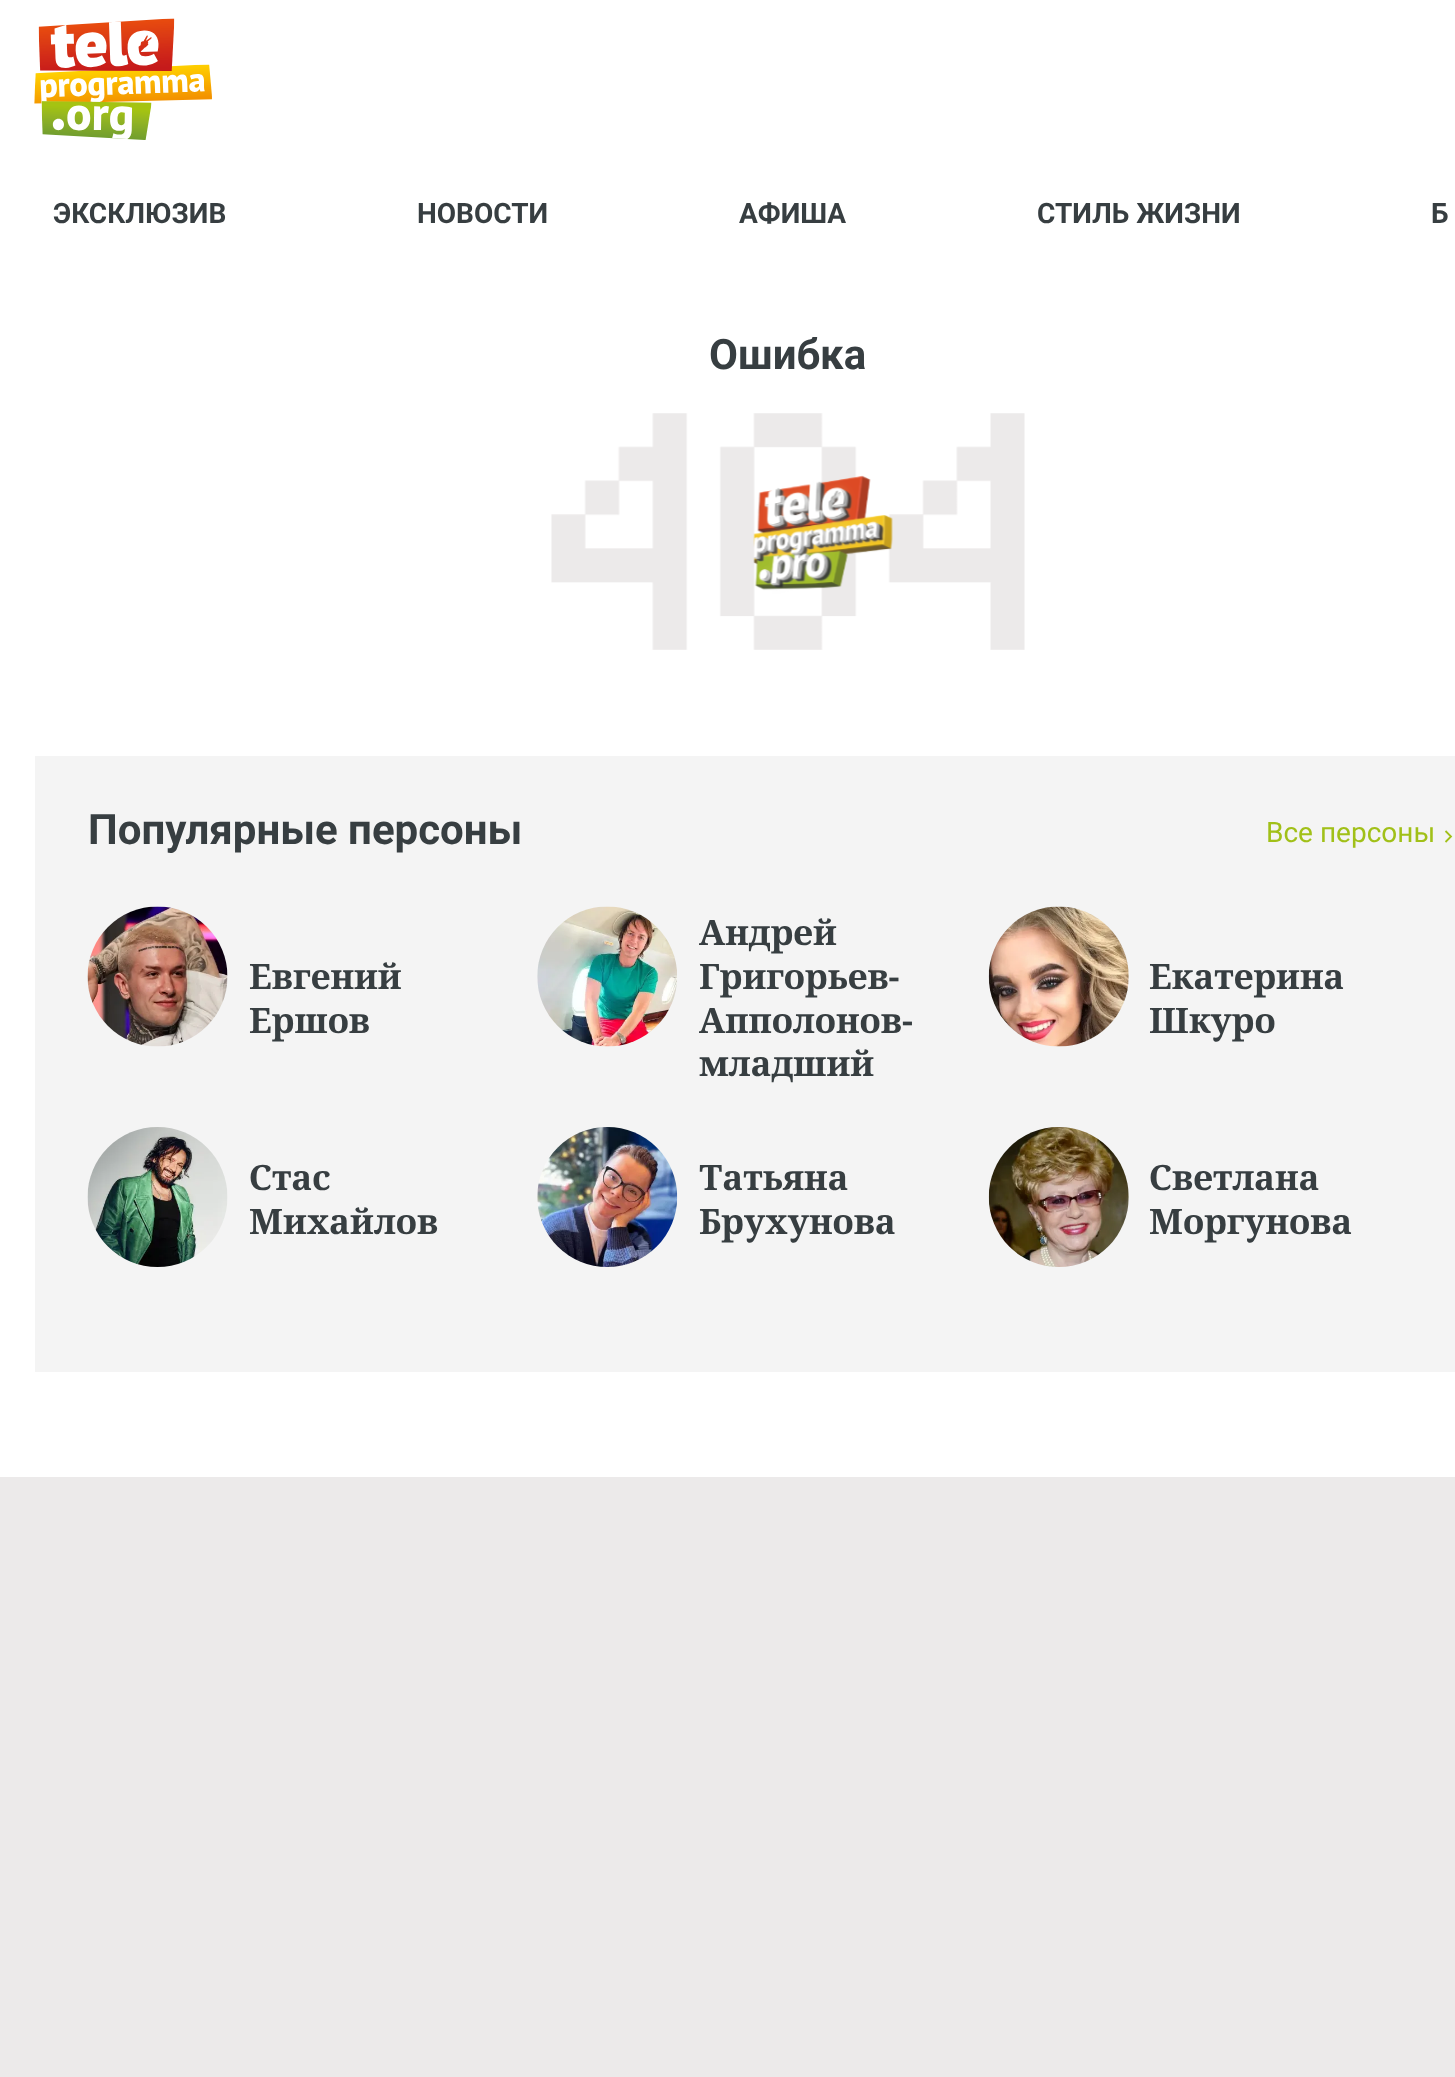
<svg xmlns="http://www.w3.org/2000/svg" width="1455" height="2077">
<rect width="100%" height="100%" fill="#eceaea"/>
<rect width="1455" height="1477" fill="#fff"/>
<image x="34" y="18" width="178" height="122" href="media/1.png"/>
<text x="53" y="223" style="font-family:Roboto;font-size:28px;font-weight:bold;fill:#373e41">ЭКСКЛЮЗИВ</text>
<text x="417" y="223" style="font-family:Roboto;font-size:28px;font-weight:bold;fill:#373e41">НОВОСТИ</text>
<text x="739" y="223" style="font-family:Roboto;font-size:28px;font-weight:bold;fill:#373e41">АФИША</text>
<text x="1037" y="223" style="font-family:Roboto;font-size:28px;font-weight:bold;fill:#373e41">СТИЛЬ ЖИЗНИ</text>
<text x="1431" y="223" style="font-family:Roboto;font-size:28px;font-weight:bold;fill:#373e41">Б</text>
<text x="709" y="369" style="font-family:Roboto;font-size:42px;font-weight:bold;fill:#373e41">Ошибка</text>
<image x="551" y="413" width="474" height="237" href="media/2.png"/>
<rect x="35" y="756" width="1420" height="616" fill="#f4f4f4"/>
<text x="88" y="844" style="font-family:Roboto;font-size:42px;font-weight:bold;fill:#373e41">Популярные персоны</text>
<text x="1266" y="842" style="font-family:Roboto;font-size:28px;fill:#a1c018">Все персоны</text>
<path d="M1445.5 831l5.5 5.5l-5.5 5.5" fill="none" stroke="#a1c018" stroke-width="1.8"/>
<image x="87" y="906" width="141" height="141" href="media/3.png"/>
<text x="249" y="989" style="font-family:Noto Serif;font-size:35px;font-weight:bold;fill:#373e41">Евгений</text>
<text x="249" y="1033" style="font-family:Noto Serif;font-size:35px;font-weight:bold;fill:#373e41">Ершов</text>
<image x="537" y="906" width="140" height="141" href="media/4.png"/>
<text x="699" y="945" style="font-family:Noto Serif;font-size:35px;font-weight:bold;fill:#373e41">Андрей</text>
<text x="699" y="989" style="font-family:Noto Serif;font-size:35px;font-weight:bold;fill:#373e41">Григорьев-</text>
<text x="699" y="1033" style="font-family:Noto Serif;font-size:35px;font-weight:bold;fill:#373e41">Апполонов-</text>
<text x="699" y="1076" style="font-family:Noto Serif;font-size:35px;font-weight:bold;fill:#373e41">младший</text>
<image x="988" y="906" width="141" height="141" href="media/5.png"/>
<text x="1149" y="989" style="font-family:Noto Serif;font-size:35px;font-weight:bold;fill:#373e41">Екатерина</text>
<text x="1149" y="1033" style="font-family:Noto Serif;font-size:35px;font-weight:bold;fill:#373e41">Шкуро</text>
<image x="87" y="1127" width="141" height="140" href="media/6.png"/>
<text x="249" y="1190" style="font-family:Noto Serif;font-size:35px;font-weight:bold;fill:#373e41">Стас</text>
<text x="249" y="1234" style="font-family:Noto Serif;font-size:35px;font-weight:bold;fill:#373e41">Михайлов</text>
<image x="537" y="1127" width="141" height="140" href="media/7.png"/>
<text x="699" y="1190" style="font-family:Noto Serif;font-size:35px;font-weight:bold;fill:#373e41">Татьяна</text>
<text x="699" y="1234" style="font-family:Noto Serif;font-size:35px;font-weight:bold;fill:#373e41">Брухунова</text>
<image x="988" y="1127" width="141" height="140" href="media/8.png"/>
<text x="1149" y="1190" style="font-family:Noto Serif;font-size:35px;font-weight:bold;fill:#373e41">Светлана</text>
<text x="1149" y="1234" style="font-family:Noto Serif;font-size:35px;font-weight:bold;fill:#373e41">Моргунова</text>
</svg>
